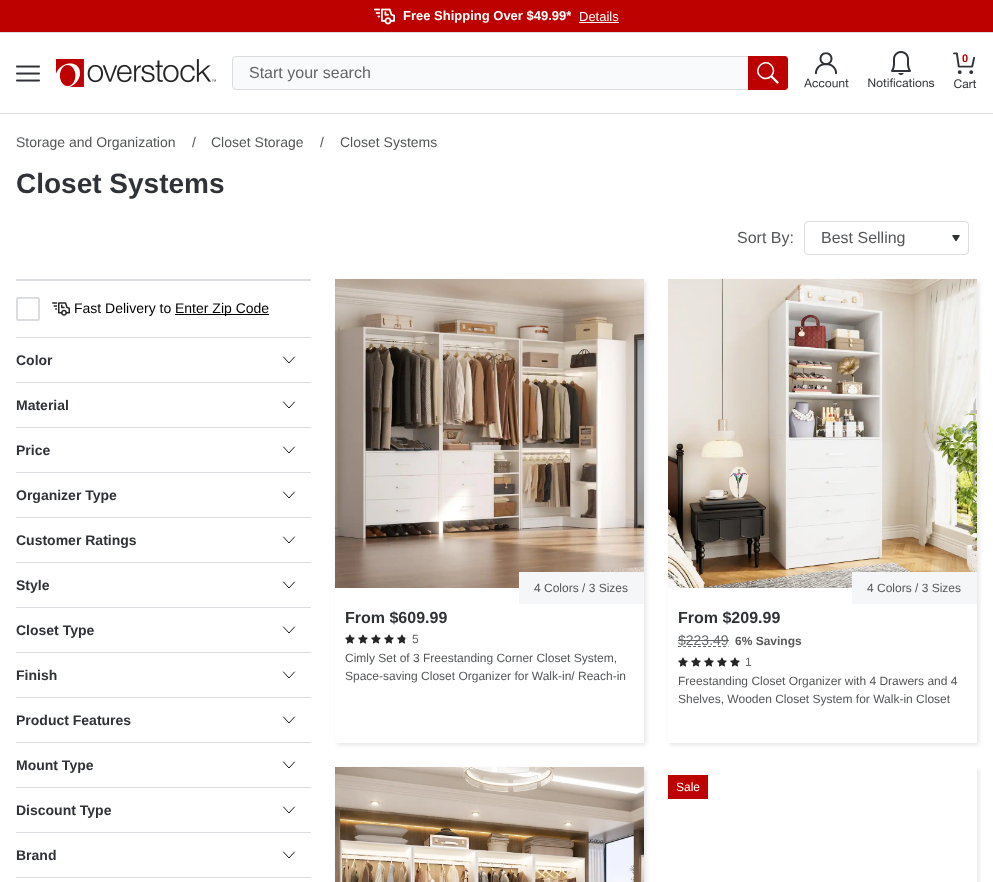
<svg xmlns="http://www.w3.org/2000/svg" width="993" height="882">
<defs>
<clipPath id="clip1"><path d="M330 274h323v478h-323zm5 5h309v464h-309z" clip-rule="evenodd"/></clipPath>
<clipPath id="clip2"><path d="M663 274h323v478h-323zm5 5h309v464h-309z" clip-rule="evenodd"/></clipPath>
<clipPath id="clip3"><rect x="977" y="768" width="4" height="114"/></clipPath>
</defs>
<rect width="100%" height="100%" fill="#fff"/>
<rect width="993" height="32" fill="#bd0000"/>
<image x="374" y="8" width="21" height="17" href="media/1.png"/>
<text x="403" y="20" style="font-family:Liberation Sans;font-size:13px;font-weight:bold;fill:#fff">Free Shipping Over $49.99*</text>
<text x="579" y="21" style="font-family:Liberation Sans;font-size:13px;fill:#fff">Details</text>
<rect x="579" y="22" width="40" height="1" fill="#fff"/>
<rect y="32" width="993" height="1" fill="#dadcdf"/>
<rect y="113" width="993" height="1" fill="#dadcdf"/>
<image x="16" y="65" width="24" height="17" href="media/2.png"/>
<image x="56" y="59" width="160" height="28" href="media/3.png"/>
<rect x="232.5" y="56.5" width="555" height="33" rx="3.5" fill="#f9fafb" stroke="#dadcdf"/>
<text x="249" y="78" style="font-family:Liberation Sans;font-size:16px;fill:#626669">Start your search</text>
<path d="M748 56h37c1.5 0 3 1.5 3 3v28c0 1.5-1.5 3-3 3h-37z" fill="#bd0000"/>
<path d="M777.5 82.5l-5.5-5.5" fill="none" stroke="#fff" stroke-width="2.4" stroke-linecap="round"/>
<path d="M771 65c7.5 7.5-3.5 18.5-11 11c-7-7 4-18 11-11z" fill="none" stroke="#fff" stroke-width="1.6"/>
<image x="804" y="52" width="45" height="36" href="media/4.png"/>
<image x="868" y="51" width="67" height="37" href="media/5.png"/>
<image x="953" y="52" width="24" height="37" href="media/6.png"/>
<text x="962" y="62" style="font-family:Liberation Sans;font-size:11px;font-weight:bold;fill:#bd0000">0</text>
<text x="16" y="147" style="font-family:Liberation Sans;font-size:14px;fill:#545658">Storage and Organization</text>
<text x="192" y="147" style="font-family:Liberation Sans;font-size:14px;fill:#545658">/</text>
<text x="211" y="147" style="font-family:Liberation Sans;font-size:14px;fill:#545658">Closet Storage</text>
<text x="320" y="147" style="font-family:Liberation Sans;font-size:14px;fill:#545658">/</text>
<text x="340" y="147" style="font-family:Liberation Sans;font-size:14px;fill:#545658">Closet Systems</text>
<text x="16" y="193" style="font-family:Liberation Sans;font-size:28px;font-weight:bold;fill:#2f3337">Closet Systems</text>
<text x="737" y="243" style="font-family:Liberation Sans;font-size:16px;fill:#545658">Sort By:</text>
<image x="952" y="235" width="8" height="7" href="media/7.png"/>
<rect x="804.5" y="221.5" width="164" height="33" rx="3.5" fill="none" stroke="#dadcdf"/>
<text x="821" y="243" style="font-family:Liberation Sans;font-size:16px;fill:#545658">Best Selling</text>
<rect x="16" y="279" width="295" height="2" fill="#dadcdf"/>
<rect x="17" y="298" width="22" height="22" rx="1" fill="none" stroke="#dadcdf" stroke-width="2"/>
<rect x="19" y="298" width="18" height="1" fill="#e1e3e5"/>
<image x="52" y="302" width="18" height="14" href="media/8.png"/>
<text x="74" y="313" style="font-family:Liberation Sans;font-size:14px;fill:#000">Fast Delivery to</text>
<rect x="175" y="314" width="94" height="1" fill="#000"/>
<text x="175" y="313" style="font-family:Liberation Sans;font-size:14px;fill:#000">Enter Zip Code</text>
<rect x="16" y="337" width="295" height="1" fill="#dadcdf"/>
<text x="16" y="365" style="font-family:Liberation Sans;font-size:14px;font-weight:bold;fill:#2f3337">Color</text>
<rect x="16" y="382" width="295" height="1" fill="#dadcdf"/>
<path d="M294.5 357l-5.5 6l-5.5-6m11 45l-5.5 6l-5.5-6" fill="none" stroke="#000" stroke-width="0.9" stroke-linecap="round"/>
<text x="16" y="410" style="font-family:Liberation Sans;font-size:14px;font-weight:bold;fill:#2f3337">Material</text>
<rect x="16" y="427" width="295" height="1" fill="#dadcdf"/>
<text x="16" y="455" style="font-family:Liberation Sans;font-size:14px;font-weight:bold;fill:#2f3337">Price</text>
<rect x="16" y="472" width="295" height="1" fill="#dadcdf"/>
<path d="M294.5 447l-5.5 6l-5.5-6m11 45l-5.5 6l-5.5-6" fill="none" stroke="#000" stroke-width="0.9" stroke-linecap="round"/>
<text x="16" y="500" style="font-family:Liberation Sans;font-size:14px;font-weight:bold;fill:#2f3337">Organizer Type</text>
<rect x="16" y="517" width="295" height="1" fill="#dadcdf"/>
<text x="16" y="545" style="font-family:Liberation Sans;font-size:14px;font-weight:bold;fill:#2f3337">Customer Ratings</text>
<rect x="16" y="562" width="295" height="1" fill="#dadcdf"/>
<path d="M294.5 537l-5.5 6l-5.5-6m11 45l-5.5 6l-5.5-6" fill="none" stroke="#000" stroke-width="0.9" stroke-linecap="round"/>
<text x="16" y="590" style="font-family:Liberation Sans;font-size:14px;font-weight:bold;fill:#2f3337">Style</text>
<rect x="16" y="607" width="295" height="1" fill="#dadcdf"/>
<text x="16" y="635" style="font-family:Liberation Sans;font-size:14px;font-weight:bold;fill:#2f3337">Closet Type</text>
<rect x="16" y="652" width="295" height="1" fill="#dadcdf"/>
<path d="M294.5 627l-5.5 6l-5.5-6m11 45l-5.5 6l-5.5-6" fill="none" stroke="#000" stroke-width="0.9" stroke-linecap="round"/>
<text x="16" y="680" style="font-family:Liberation Sans;font-size:14px;font-weight:bold;fill:#2f3337">Finish</text>
<rect x="16" y="697" width="295" height="1" fill="#dadcdf"/>
<text x="16" y="725" style="font-family:Liberation Sans;font-size:14px;font-weight:bold;fill:#2f3337">Product Features</text>
<rect x="16" y="742" width="295" height="1" fill="#dadcdf"/>
<path d="M294.5 717l-5.5 6l-5.5-6m11 45l-5.5 6l-5.5-6" fill="none" stroke="#000" stroke-width="0.9" stroke-linecap="round"/>
<text x="16" y="770" style="font-family:Liberation Sans;font-size:14px;font-weight:bold;fill:#2f3337">Mount Type</text>
<rect x="16" y="787" width="295" height="1" fill="#dadcdf"/>
<text x="16" y="815" style="font-family:Liberation Sans;font-size:14px;font-weight:bold;fill:#2f3337">Discount Type</text>
<rect x="16" y="832" width="295" height="1" fill="#dadcdf"/>
<path d="M294.5 807l-5.5 6l-5.5-6m11 45l-5.5 6l-5.5-6" fill="none" stroke="#000" stroke-width="0.9" stroke-linecap="round"/>
<text x="16" y="860" style="font-family:Liberation Sans;font-size:14px;font-weight:bold;fill:#2f3337">Brand</text>
<rect x="16" y="877" width="295" height="1" fill="#dadcdf"/>
<g clip-path="url(#clip1)">
<rect x="337" y="281" width="309" height="464" fill="#0000001a" filter="blur(2px)"/>
</g>
<image x="335" y="279" width="309" height="309" href="media/9.png"/>
<rect x="519" y="572" width="125" height="32" fill="#f5f6f7"/>
<text x="534" y="592" style="font-family:Liberation Sans;font-size:12px;fill:#545658">4 Colors / 3 Sizes</text>
<text x="345" y="623" style="font-family:Liberation Sans;font-size:16px;font-weight:bold;fill:#2f3337">From $609.99</text>
<image x="345" y="634" width="10" height="10" href="media/10.png"/>
<image x="358" y="634" width="10" height="10" href="media/10.png"/>
<image x="371" y="634" width="10" height="10" href="media/10.png"/>
<image x="384" y="634" width="10" height="10" href="media/10.png"/>
<image x="397" y="634" width="10" height="10" href="media/11.png"/>
<text x="412" y="643" style="font-family:Liberation Sans;font-size:12px;fill:#626669">5</text>
<text x="345" y="662" style="font-family:Liberation Sans;font-size:12px;fill:#545658">Cimly Set of 3 Freestanding Corner Closet System,</text>
<text x="345" y="680" style="font-family:Liberation Sans;font-size:12px;fill:#545658">Space-saving Closet Organizer for Walk-in/ Reach-in</text>
<g clip-path="url(#clip2)">
<rect x="670" y="281" width="309" height="464" fill="#0000001a" filter="blur(2px)"/>
</g>
<image x="668" y="279" width="309" height="309" href="media/12.png"/>
<rect x="852" y="572" width="125" height="32" fill="#f5f6f7"/>
<text x="867" y="592" style="font-family:Liberation Sans;font-size:12px;fill:#545658">4 Colors / 3 Sizes</text>
<text x="678" y="623" style="font-family:Liberation Sans;font-size:16px;font-weight:bold;fill:#2f3337">From $209.99</text>
<text x="678" y="645" style="font-family:Liberation Sans;font-size:14px;fill:#626669">$223.49</text>
<path d="M678 646.5h50.5" fill="none" stroke="#626669" stroke-dasharray="3 2"/>
<rect x="678" y="640" width="51" height="1" fill="#626669"/>
<text x="735" y="645" style="font-family:Liberation Sans;font-size:12px;font-weight:bold;fill:#5a5a5a">6% Savings</text>
<image x="678" y="657" width="10" height="10" href="media/10.png"/>
<image x="691" y="657" width="10" height="10" href="media/10.png"/>
<image x="704" y="657" width="10" height="10" href="media/10.png"/>
<image x="717" y="657" width="10" height="10" href="media/10.png"/>
<image x="730" y="657" width="10" height="10" href="media/10.png"/>
<text x="745" y="666" style="font-family:Liberation Sans;font-size:12px;fill:#626669">1</text>
<text x="678" y="685" style="font-family:Liberation Sans;font-size:12px;fill:#545658">Freestanding Closet Organizer with 4 Drawers and 4</text>
<text x="678" y="703" style="font-family:Liberation Sans;font-size:12px;fill:#545658">Shelves, Wooden Closet System for Walk-in Closet</text>
<rect x="337" y="769" width="309" height="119" fill="#0000001a" filter="blur(2px)"/>
<image x="335" y="767" width="309" height="115" href="media/13.png"/>
<g clip-path="url(#clip3)">
<rect x="670" y="769" width="309" height="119" fill="#0000001a" filter="blur(2px)"/>
</g>
<rect x="668" y="775" width="40" height="24" fill="#bd0000"/>
<text x="676" y="791" style="font-family:Liberation Sans;font-size:12px;fill:#fff">Sale</text>
</svg>
